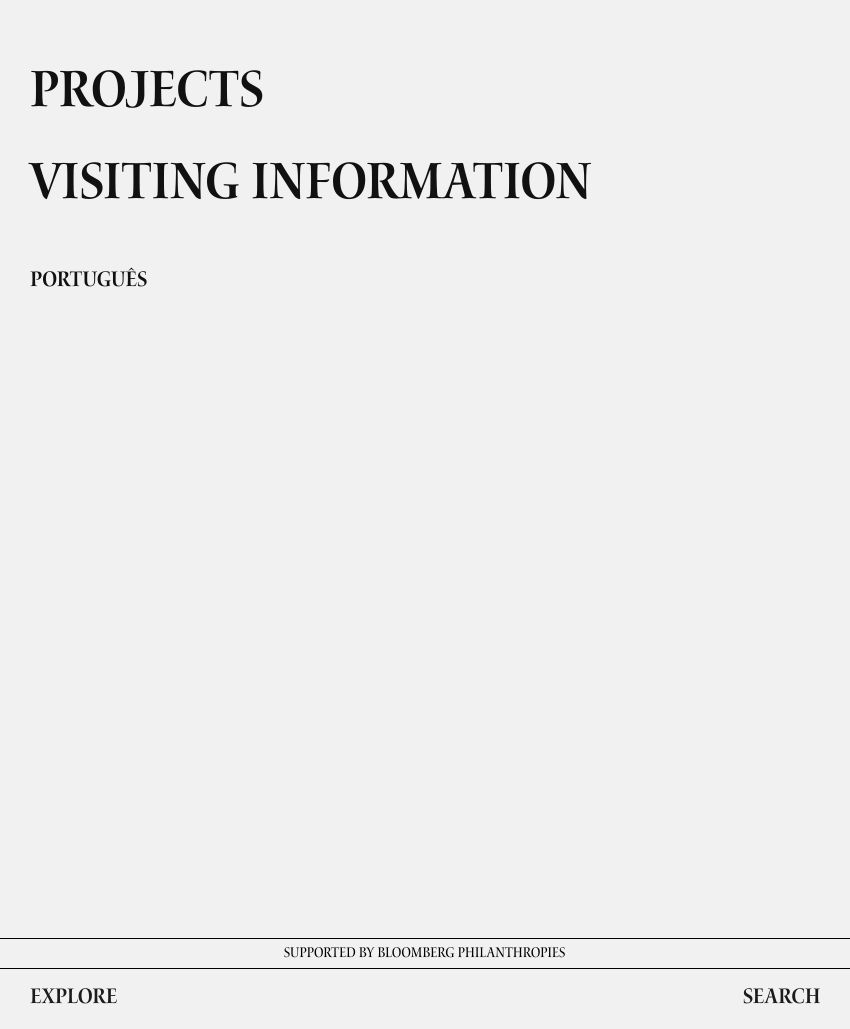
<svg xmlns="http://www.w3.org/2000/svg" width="850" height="1029">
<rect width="100%" height="100%" fill="#f1f1f1"/>
<image x="31" y="70" width="232" height="38" href="media/1.png"/>
<image x="28" y="162" width="564" height="38" href="media/2.png"/>
<image x="30" y="267" width="117" height="20" href="media/3.png"/>
<rect y="938" width="850" height="1" fill="#000"/>
<image x="284" y="947" width="281" height="11" href="media/4.png"/>
<rect y="968" width="850" height="1" fill="#000"/>
<image x="30" y="988" width="87" height="16" href="media/5.png"/>
<image x="743" y="988" width="77" height="16" href="media/6.png"/>
</svg>
